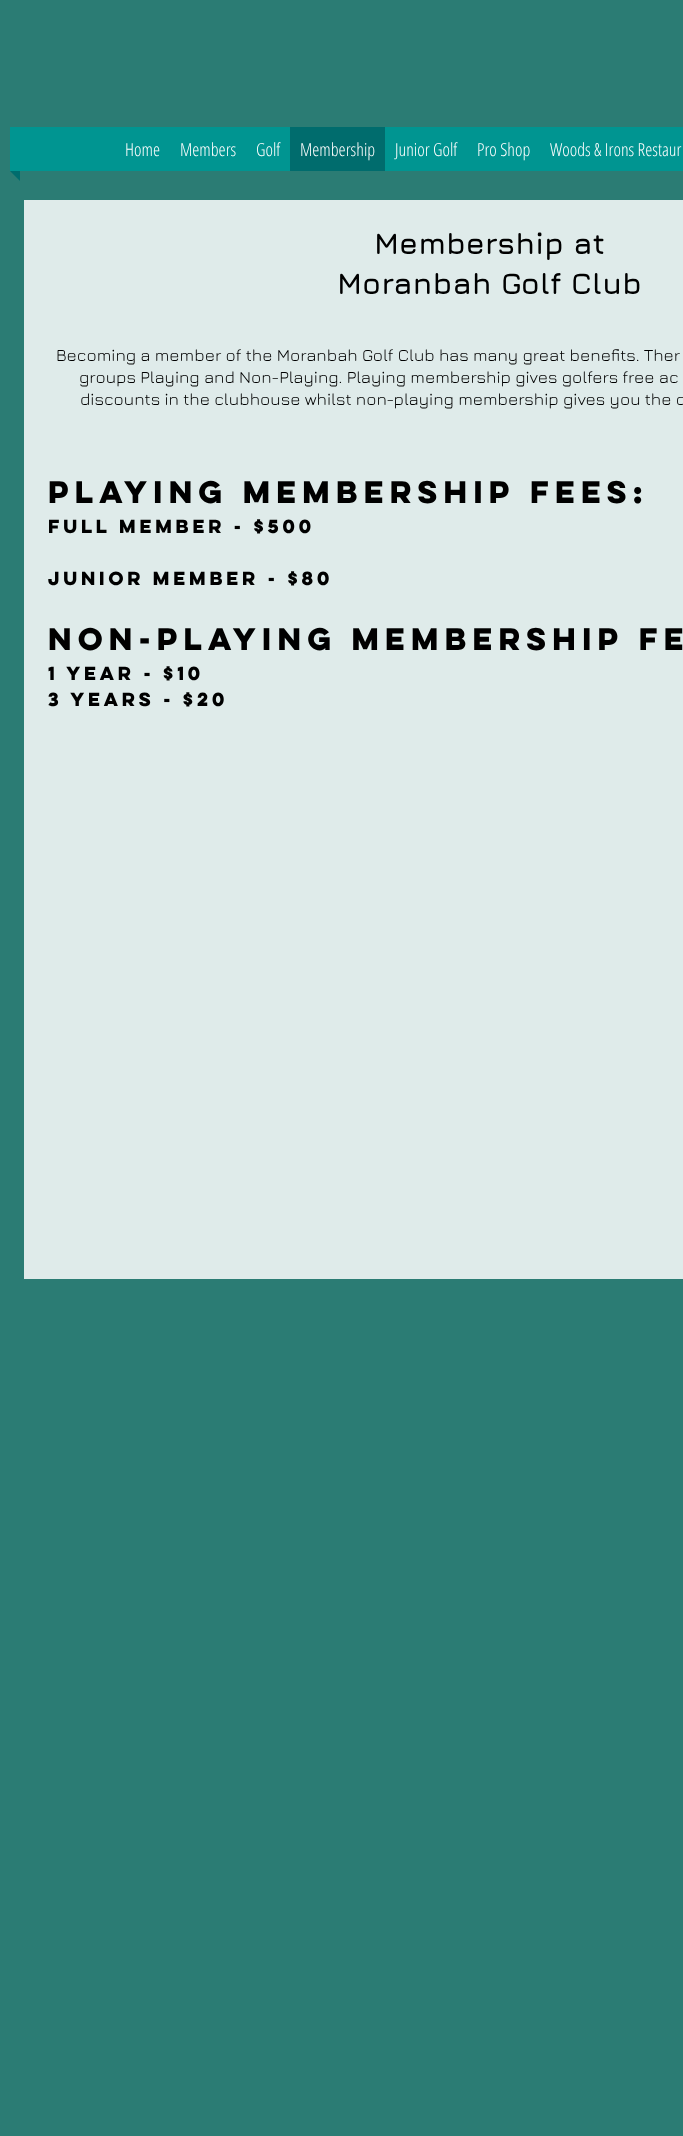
<svg xmlns="http://www.w3.org/2000/svg" width="683" height="2136">
<rect width="100%" height="100%" fill="#2b7c74"/>
<rect x="10" y="127" width="673" height="44" fill="#009591"/>
<text x="125" y="156" style="font-family:Open Sans Condensed;font-size:18px;font-weight:300;fill:#fff">Home</text>
<text x="180" y="156" style="font-family:Open Sans Condensed;font-size:18px;font-weight:300;fill:#fff">Members</text>
<text x="256" y="156" style="font-family:Open Sans Condensed;font-size:18px;font-weight:300;fill:#fff">Golf</text>
<rect x="290" y="127" width="95" height="44" fill="#006c6d"/>
<text x="300" y="156" style="font-family:Open Sans Condensed;font-size:18px;font-weight:300;fill:#fff">Membership</text>
<text x="395" y="156" style="font-family:Open Sans Condensed;font-size:18px;font-weight:300;fill:#fff">Junior Golf</text>
<text x="477" y="156" style="font-family:Open Sans Condensed;font-size:18px;font-weight:300;fill:#fff">Pro Shop</text>
<text x="550" y="156" style="font-family:Open Sans Condensed;font-size:18px;font-weight:300;fill:#fff">Woods &amp; Irons Restaur</text>
<path d="M10 171h10v10z" fill="#006c6d"/>
<rect x="24" y="200" width="659" height="1079" fill="#dfebea"/>
<text x="374" y="254" style="font-family:Jura;font-size:30px;font-weight:bold;fill:#000">Membership at</text>
<text x="337" y="294" style="font-family:Jura;font-size:30px;font-weight:bold;fill:#000">Moranbah Golf Club</text>
<text x="56" y="361" style="font-family:Jura;font-size:17px;fill:#000">Becoming a member of the Moranbah Golf Club has many great benefits. Ther</text>
<text x="79" y="383" style="font-family:Jura;font-size:17px;fill:#000">groups Playing and Non-Playing. Playing membership gives golfers free ac</text>
<text x="80" y="405" style="font-family:Jura;font-size:17px;fill:#000">discounts in the clubhouse whilst non-playing membership gives you the d</text>
<text x="48" y="503" style="font-family:'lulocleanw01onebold';font-size:28px;font-weight:bold;fill:#000">Playing Membership Fees:</text>
<text x="48" y="533" style="font-family:'lulocleanw01onebold';font-size:17px;font-weight:bold;fill:#000">Full Member - $500</text>
<text x="48" y="585" style="font-family:'lulocleanw01onebold';font-size:17px;font-weight:bold;fill:#000">Junior Member - $80</text>
<text x="48" y="650" style="font-family:'lulocleanw01onebold';font-size:28px;font-weight:bold;fill:#000">Non-Playing Membership Fe</text>
<text x="48" y="680" style="font-family:'lulocleanw01onebold';font-size:17px;font-weight:bold;fill:#000">1 YEar - $10</text>
<text x="48" y="706" style="font-family:'lulocleanw01onebold';font-size:17px;font-weight:bold;fill:#000">3 Years - $20</text>
</svg>
